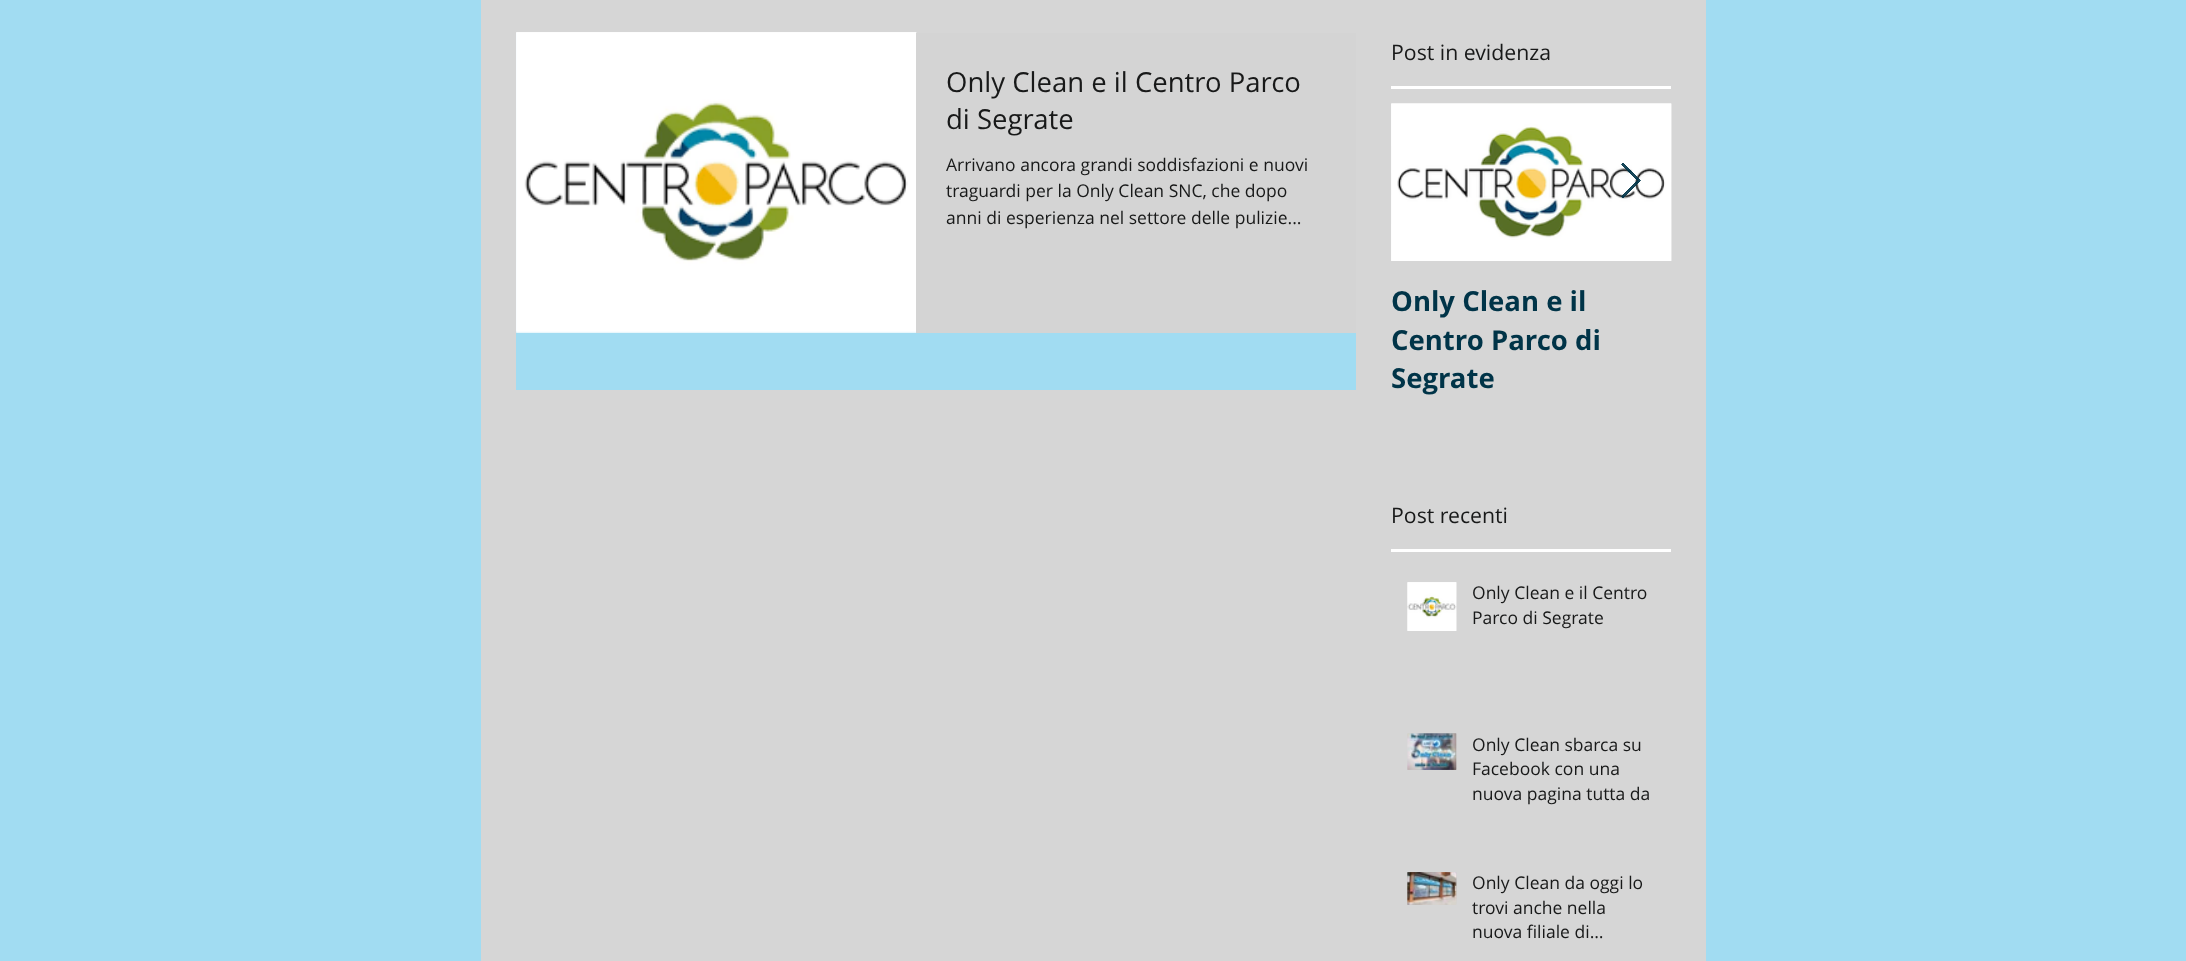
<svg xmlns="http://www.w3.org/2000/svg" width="2186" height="961">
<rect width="100%" height="100%" fill="#a1dcf2"/>
<rect x="481" width="1225" height="961" fill="#d6d6d6"/>
<text x="1391" y="60" style="font-family:Open Sans;font-size:21.25px;fill:#181919">Post in evidenza</text>
<rect x="516" y="33" width="840" height="357" fill="#a1dcf2"/>
<image x="516" y="32" width="401" height="301" href="media/1.png"/>
<image x="516" y="32" width="401" height="301" href="media/2.png"/>
<rect x="916" y="33" width="440" height="300" fill="#d4d4d4"/>
<text x="946" y="92" style="font-family:Open Sans;font-size:27.5px;fill:#181919">Only Clean e il Centro Parco</text>
<text x="946" y="129" style="font-family:Open Sans;font-size:27.5px;fill:#181919">di Segrate</text>
<text x="946" y="171" style="font-family:Open Sans;font-size:17.5px;fill:#181919">Arrivano ancora grandi soddisfazioni e nuovi</text>
<text x="946" y="197" style="font-family:Open Sans;font-size:17.5px;fill:#181919">traguardi per la Only Clean SNC, che dopo</text>
<text x="946" y="224" style="font-family:Open Sans;font-size:17.5px;fill:#181919">anni di esperienza nel settore delle pulizie...</text>
<rect x="1391" y="86" width="280" height="3" fill="#fff"/>
<image x="1391" y="103" width="281" height="158" href="media/3.png"/>
<image x="1391" y="103" width="281" height="158" href="media/4.png"/>
<path d="M1621.5 164.5l1.5-1.5l17.5 17.5l-17.5 17.5l-1.5-1.5l16-16z" fill="#003448e6" stroke="#003448e6"/>
<text x="1391" y="311" style="font-family:Open Sans;font-size:27.5px;font-weight:bold;fill:#003448">Only Clean e il</text>
<text x="1391" y="350" style="font-family:Open Sans;font-size:27.5px;font-weight:bold;fill:#003448">Centro Parco di</text>
<text x="1391" y="388" style="font-family:Open Sans;font-size:27.5px;font-weight:bold;fill:#003448">Segrate</text>
<text x="1391" y="523" style="font-family:Open Sans;font-size:21.25px;fill:#181919">Post recenti</text>
<rect x="1391" y="549" width="280" height="3" fill="#fff"/>
<image x="1407" y="582" width="50" height="49" href="media/5.png"/>
<image x="1407" y="582" width="50" height="49" href="media/6.png"/>
<text x="1472" y="599" style="font-family:Open Sans;font-size:17.5px;fill:#181919">Only Clean e il Centro</text>
<text x="1472" y="624" style="font-family:Open Sans;font-size:17.5px;fill:#181919">Parco di Segrate</text>
<image x="1407" y="733" width="50" height="37" href="media/7.png"/>
<image x="1407" y="733" width="50" height="37" href="media/8.png"/>
<text x="1472" y="751" style="font-family:Open Sans;font-size:17.5px;fill:#181919">Only Clean sbarca su</text>
<text x="1472" y="775" style="font-family:Open Sans;font-size:17.5px;fill:#181919">Facebook con una</text>
<text x="1472" y="800" style="font-family:Open Sans;font-size:17.5px;fill:#181919">nuova pagina tutta da</text>
<image x="1407" y="872" width="50" height="33" href="media/9.png"/>
<image x="1407" y="872" width="50" height="33" href="media/10.png"/>
<text x="1472" y="889" style="font-family:Open Sans;font-size:17.5px;fill:#181919">Only Clean da oggi lo</text>
<text x="1472" y="914" style="font-family:Open Sans;font-size:17.5px;fill:#181919">trovi anche nella</text>
<text x="1472" y="938" style="font-family:Open Sans;font-size:17.5px;fill:#181919">nuova filiale di…</text>
</svg>
